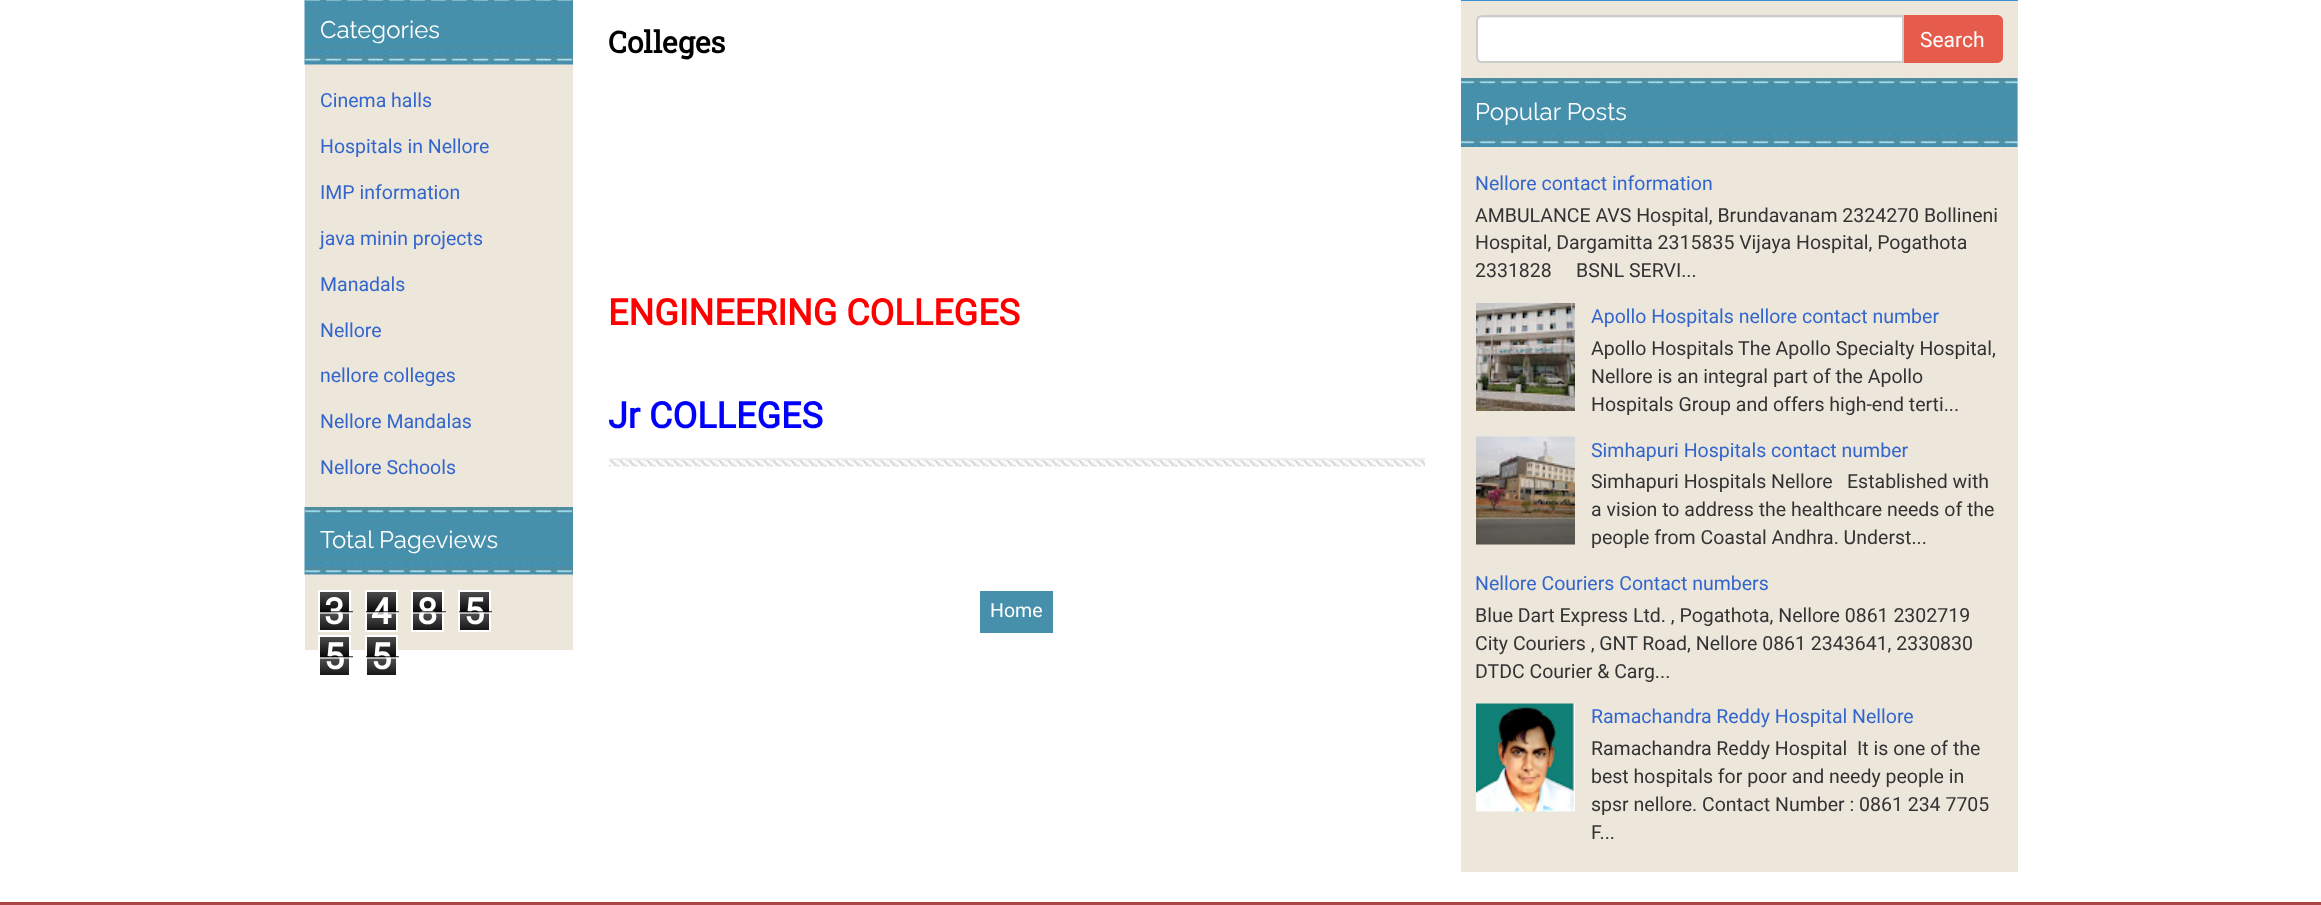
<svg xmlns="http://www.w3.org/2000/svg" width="2321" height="905">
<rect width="100%" height="100%" fill="#fff"/>
<rect x="305" y="64" width="268" height="586" fill="#ece6db"/>
<image x="304" y="0" width="269" height="65" href="media/1.png"/>
<text x="320" y="38" style="font-family:Raleway;font-size:24px;font-weight:100;fill:#fff">Categories</text>
<text x="320" y="107" style="font-family:Roboto;font-size:19.5px;fill:#36c">Cinema halls</text>
<text x="320" y="153" style="font-family:Roboto;font-size:19.5px;fill:#36c">Hospitals in Nellore</text>
<text x="320" y="199" style="font-family:Roboto;font-size:19.5px;fill:#36c">IMP information</text>
<text x="320" y="245" style="font-family:Roboto;font-size:19.5px;fill:#36c">java minin projects</text>
<text x="320" y="291" style="font-family:Roboto;font-size:19.5px;fill:#36c">Manadals</text>
<text x="320" y="337" style="font-family:Roboto;font-size:19.5px;fill:#36c">Nellore</text>
<text x="320" y="382" style="font-family:Roboto;font-size:19.5px;fill:#36c">nellore colleges</text>
<text x="320" y="428" style="font-family:Roboto;font-size:19.5px;fill:#36c">Nellore Mandalas</text>
<text x="320" y="474" style="font-family:Roboto;font-size:19.5px;fill:#36c">Nellore Schools</text>
<image x="304" y="507" width="269" height="68" href="media/2.png"/>
<text x="320" y="548" style="font-family:Raleway;font-size:24px;font-weight:100;fill:#fff">Total Pageviews</text>
<image x="320" y="592" width="29" height="38" href="media/3.png"/>
<rect x="319" y="591" width="31" height="40" fill="none" stroke="#fff" stroke-width="2"/>
<text x="324" y="624" style="font-family:Roboto;font-size:36px;font-weight:bold;fill:#fff">3</text>
<rect x="320" y="611" width="33" height="2" fill="#000000a6"/>
<rect x="320" y="612" width="33" height="2" fill="#ffffffa6"/>
<image x="367" y="592" width="29" height="38" href="media/3.png"/>
<rect x="366" y="591" width="31" height="40" fill="none" stroke="#fff" stroke-width="2"/>
<text x="371" y="624" style="font-family:Roboto;font-size:36px;font-weight:bold;fill:#fff">4</text>
<rect x="366" y="611" width="33" height="2" fill="#000000a6"/>
<rect x="366" y="612" width="33" height="2" fill="#ffffffa6"/>
<image x="413" y="592" width="29" height="38" href="media/3.png"/>
<rect x="412" y="591" width="31" height="40" fill="none" stroke="#fff" stroke-width="2"/>
<text x="417" y="624" style="font-family:Roboto;font-size:36px;font-weight:bold;fill:#fff">8</text>
<rect x="413" y="611" width="33" height="2" fill="#000000a6"/>
<rect x="413" y="612" width="33" height="2" fill="#ffffffa6"/>
<image x="460" y="592" width="29" height="38" href="media/3.png"/>
<rect x="459" y="591" width="31" height="40" fill="none" stroke="#fff" stroke-width="2"/>
<text x="464" y="624" style="font-family:Roboto;font-size:36px;font-weight:bold;fill:#fff">5</text>
<rect x="459" y="611" width="33" height="2" fill="#000000a6"/>
<rect x="459" y="612" width="33" height="2" fill="#ffffffa6"/>
<image x="320" y="637" width="29" height="38" href="media/3.png"/>
<rect x="319" y="636" width="31" height="40" fill="none" stroke="#fff" stroke-width="2"/>
<text x="324" y="669" style="font-family:Roboto;font-size:36px;font-weight:bold;fill:#fff">5</text>
<rect x="320" y="656" width="33" height="2" fill="#000000a6"/>
<rect x="320" y="657" width="33" height="2" fill="#ffffffa6"/>
<image x="367" y="637" width="29" height="38" href="media/3.png"/>
<rect x="366" y="636" width="31" height="40" fill="none" stroke="#fff" stroke-width="2"/>
<text x="371" y="669" style="font-family:Roboto;font-size:36px;font-weight:bold;fill:#fff">5</text>
<rect x="366" y="656" width="33" height="2" fill="#000000a6"/>
<rect x="366" y="657" width="33" height="2" fill="#ffffffa6"/>
<text x="608" y="53" style="font-family:Roboto Slab;font-size:30px;font-weight:bold;fill:#000">Colleges</text>
<text x="608" y="325" style="font-family:Roboto;font-size:36px;font-weight:bold;fill:#f00">ENGINEERING COLLEGES</text>
<text x="608" y="428" style="font-family:Roboto;font-size:36px;font-weight:bold;fill:#00f">Jr COLLEGES</text>
<image x="609" y="460" width="816" height="7" href="media/4.png"/>
<rect x="609" y="458" width="816" height="2" fill="#eee"/>
<rect x="980" y="591" width="73" height="42" fill="#4690ab"/>
<text x="990" y="617" style="font-family:Roboto;font-size:19.5px;fill:#fff">Home</text>
<rect x="1461" y="1" width="557" height="871" fill="#ece6db"/>
<rect x="1461" width="557" height="1" fill="#3692d4"/>
<path d="M1902 15h95c3.5 0 6 2.5 6 6v36c0 3.5-2.5 6-6 6h-95z" fill="#e55b4c"/>
<path d="M1482 15h422v48h-422c-3.5 0-6-2.5-6-6v-36c0-3.5 2.5-6 6-6z" fill="#fff"/>
<path d="M1482 18h420v-1h-419c-3 0-5 2-5 5c0-2 2-4 4-4z" fill="#ececec"/>
<path d="M1482 16h421v46h-421c-3 0-5-2-5-5v-36c0-3 2-5 5-5z" fill="none" stroke="#ccc" stroke-width="2"/>
<text x="1920" y="47" style="font-family:Roboto;font-size:21px;fill:#fff">Search</text>
<image x="1461" y="78" width="557" height="69" href="media/5.png"/>
<text x="1475" y="120" style="font-family:Raleway;font-size:24px;font-weight:100;fill:#fff">Popular Posts</text>
<text x="1475" y="190" style="font-family:Roboto;font-size:19.5px;fill:#36c">Nellore contact information</text>
<text x="1475" y="222" style="font-family:Roboto;font-size:19.5px;fill:#333">AMBULANCE AVS Hospital, Brundavanam 2324270 Bollineni</text>
<text x="1475" y="249" style="font-family:Roboto;font-size:19.5px;fill:#333">Hospital, Dargamitta 2315835 Vijaya Hospital, Pogathota</text>
<text x="1475" y="277" style="font-family:Roboto;font-size:19.5px;fill:#333">2331828</text>
<text x="1576" y="277" style="font-family:Roboto;font-size:19.5px;fill:#333">BSNL SERVI...</text>
<image x="1476" y="303" width="99" height="108" href="media/6.png"/>
<text x="1591" y="323" style="font-family:Roboto;font-size:19.5px;fill:#36c">Apollo Hospitals nellore contact number</text>
<text x="1591" y="355" style="font-family:Roboto;font-size:19.5px;fill:#333">Apollo Hospitals</text>
<text x="1738" y="355" style="font-family:Roboto;font-size:19.5px;fill:#333">The Apollo Specialty Hospital,</text>
<text x="1591" y="383" style="font-family:Roboto;font-size:19.5px;fill:#333">Nellore is an integral part of the Apollo</text>
<text x="1591" y="411" style="font-family:Roboto;font-size:19.5px;fill:#333">Hospitals Group and offers high-end terti...</text>
<image x="1476" y="436" width="99" height="109" href="media/7.png"/>
<text x="1591" y="457" style="font-family:Roboto;font-size:19.5px;fill:#36c">Simhapuri Hospitals contact number</text>
<text x="1591" y="488" style="font-family:Roboto;font-size:19.5px;fill:#333">Simhapuri Hospitals Nellore</text>
<text x="1847" y="488" style="font-family:Roboto;font-size:19.5px;fill:#333">Established with</text>
<text x="1591" y="516" style="font-family:Roboto;font-size:19.5px;fill:#333">a vision to address the healthcare needs of the</text>
<text x="1591" y="544" style="font-family:Roboto;font-size:19.5px;fill:#333">people from Coastal Andhra. Underst...</text>
<text x="1475" y="590" style="font-family:Roboto;font-size:19.5px;fill:#36c">Nellore Couriers Contact numbers</text>
<text x="1475" y="622" style="font-family:Roboto;font-size:19.5px;fill:#333">Blue Dart Express Ltd. , Pogathota, Nellore 0861 2302719</text>
<text x="1475" y="650" style="font-family:Roboto;font-size:19.5px;fill:#333">City Couriers , GNT Road, Nellore 0861 2343641, 2330830</text>
<text x="1475" y="678" style="font-family:Roboto;font-size:19.5px;fill:#333">DTDC Courier &amp; Carg...</text>
<image x="1476" y="703" width="99" height="109" href="media/8.png"/>
<text x="1591" y="723" style="font-family:Roboto;font-size:19.5px;fill:#36c">Ramachandra Reddy Hospital Nellore</text>
<text x="1591" y="755" style="font-family:Roboto;font-size:19.5px;fill:#333">Ramachandra Reddy Hospital</text>
<text x="1857" y="755" style="font-family:Roboto;font-size:19.5px;fill:#333">It is one of the</text>
<text x="1591" y="783" style="font-family:Roboto;font-size:19.5px;fill:#333">best hospitals for poor and needy people in</text>
<text x="1591" y="811" style="font-family:Roboto;font-size:19.5px;fill:#333">spsr nellore. Contact Number : 0861 234 7705</text>
<text x="1591" y="839" style="font-family:Roboto;font-size:19.5px;fill:#333">F...</text>
<rect y="902" width="2321" height="3" fill="#ab4646"/>
</svg>
